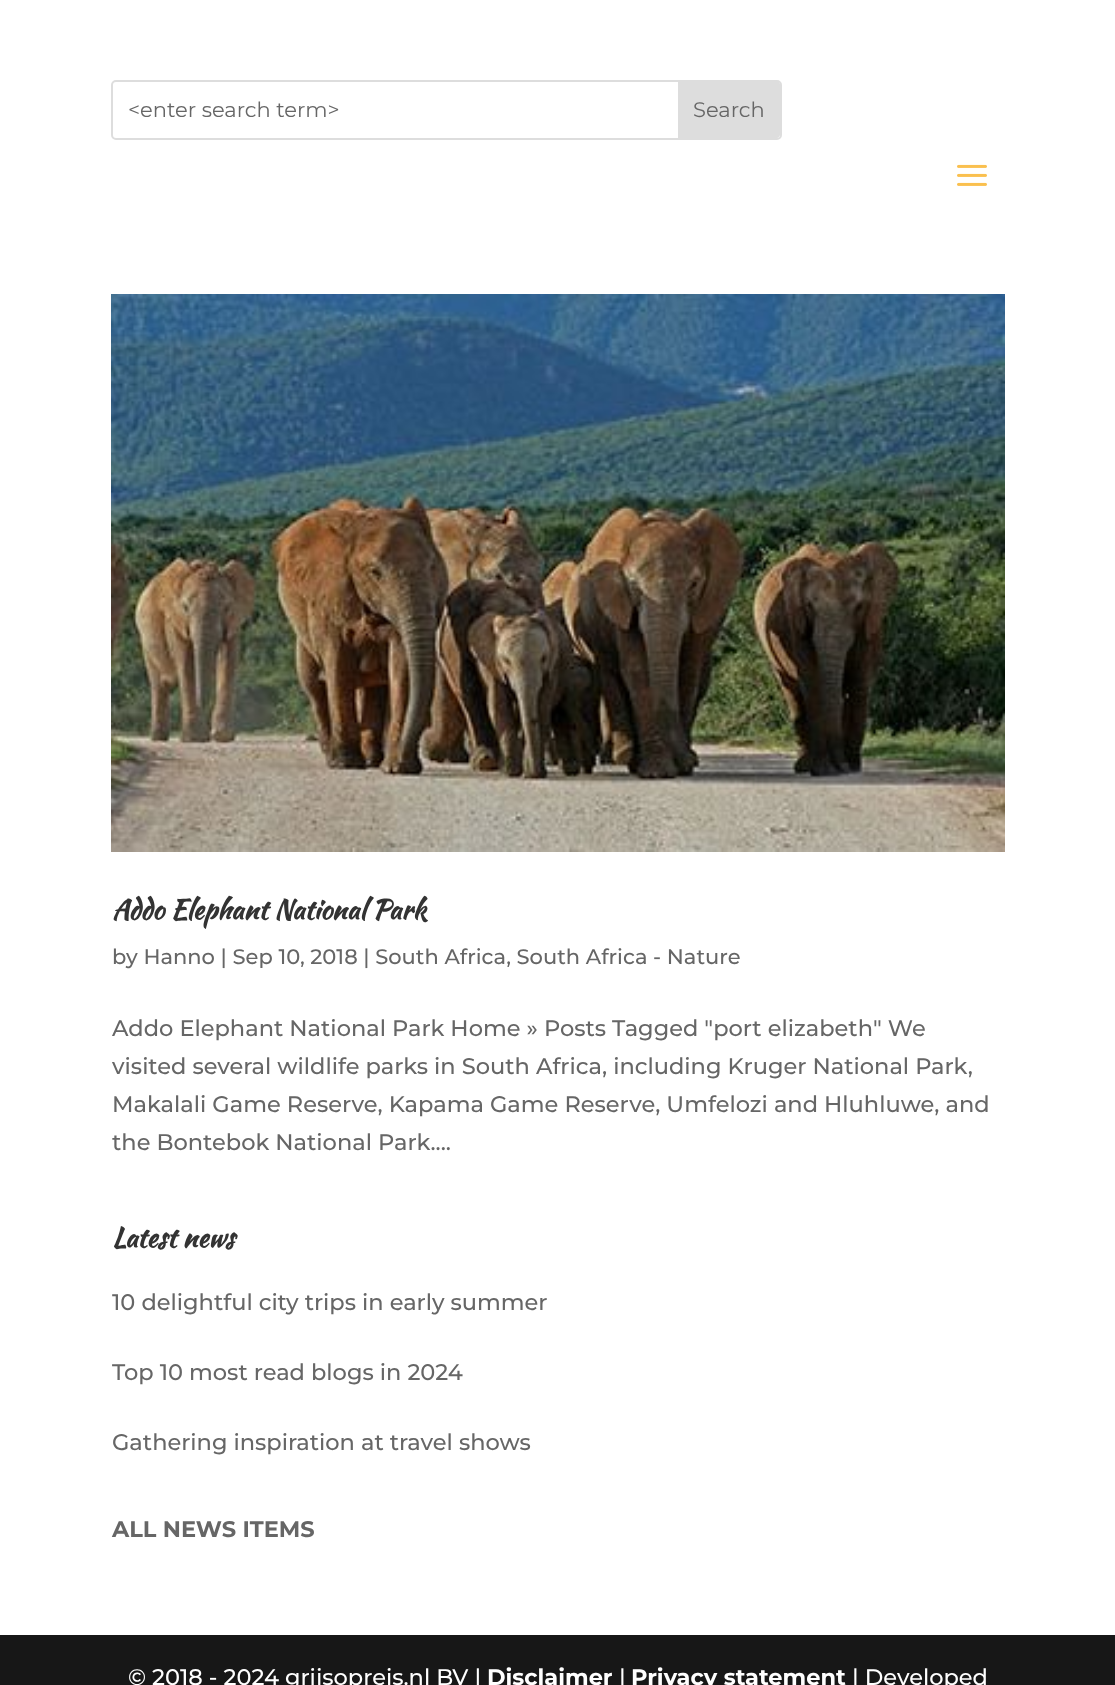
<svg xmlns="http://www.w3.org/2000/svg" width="1115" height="1685">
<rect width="100%" height="100%" fill="#fff"/>
<rect x="112" y="81" width="669" height="58" rx="4" fill="none" stroke="#ddd" stroke-width="2"/>
<text x="128" y="117" style="font-family:'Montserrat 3';font-size:21px;font-weight:100;fill:#666">&lt;enter search term&gt;</text>
<path d="M678 81h99c1.5 0 3 1.5 3 3v51c0 1.5-1.5 3-3 3h-99z" fill="#ddd"/>
<text x="693" y="117" style="font-family:'Montserrat 3';font-size:21px;font-weight:100;fill:#666">Search</text>
<image x="957" y="164" width="30" height="22" href="media/1.png"/>
<image x="111" y="294" width="894" height="558" href="media/2.png"/>
<text x="112" y="919" style="font-family:Kaushan Script;font-size:27px;font-weight:bold;fill:#333">Addo Elephant National Park</text>
<text x="112" y="964" style="font-family:Montserrat;font-size:21px;font-weight:100;fill:#666">by Hanno | Sep 10, 2018 | South Africa, South Africa - Nature</text>
<text x="112" y="1036" style="font-family:Montserrat;font-size:22.5px;font-weight:100;fill:#666">Addo Elephant National Park Home » Posts Tagged "port elizabeth" We</text>
<text x="112" y="1074" style="font-family:Montserrat;font-size:22.5px;font-weight:100;fill:#666">visited several wildlife parks in South Africa, including Kruger National Park,</text>
<text x="112" y="1112" style="font-family:Montserrat;font-size:22.5px;font-weight:100;fill:#666">Makalali Game Reserve, Kapama Game Reserve, Umfelozi and Hluhluwe, and</text>
<text x="112" y="1150" style="font-family:Montserrat;font-size:22.5px;font-weight:100;fill:#666">the Bontebok National Park....</text>
<text x="112" y="1247" style="font-family:Kaushan Script;font-size:27px;font-weight:bold;fill:#333">Latest news</text>
<text x="112" y="1310" style="font-family:Montserrat;font-size:22.5px;font-weight:100;fill:#666">10 delightful city trips in early summer</text>
<text x="112" y="1380" style="font-family:Montserrat;font-size:22.5px;font-weight:100;fill:#666">Top 10 most read blogs in 2024</text>
<text x="112" y="1450" style="font-family:Montserrat;font-size:22.5px;font-weight:100;fill:#666">Gathering inspiration at travel shows</text>
<text x="112" y="1537" style="font-family:'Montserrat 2';font-size:22.5px;font-weight:100;fill:#666">ALL NEWS ITEMS</text>
<rect y="1635" width="1115" height="50" fill="#171717"/>
<text x="128" y="1685" style="font-family:Montserrat;font-size:22.5px;font-weight:100;fill:#fff">© 2018 - 2024 grijsopreis.nl BV |</text>
<text x="487" y="1685" style="font-family:'Montserrat 2';font-size:22.5px;font-weight:100;fill:#fff">Disclaimer</text>
<text x="619" y="1685" style="font-family:Montserrat;font-size:22.5px;font-weight:100;fill:#fff">|</text>
<text x="631" y="1685" style="font-family:'Montserrat 2';font-size:22.5px;font-weight:100;fill:#fff">Privacy statement</text>
<text x="852" y="1685" style="font-family:Montserrat;font-size:22.5px;font-weight:100;fill:#fff">| Developed</text>
</svg>
